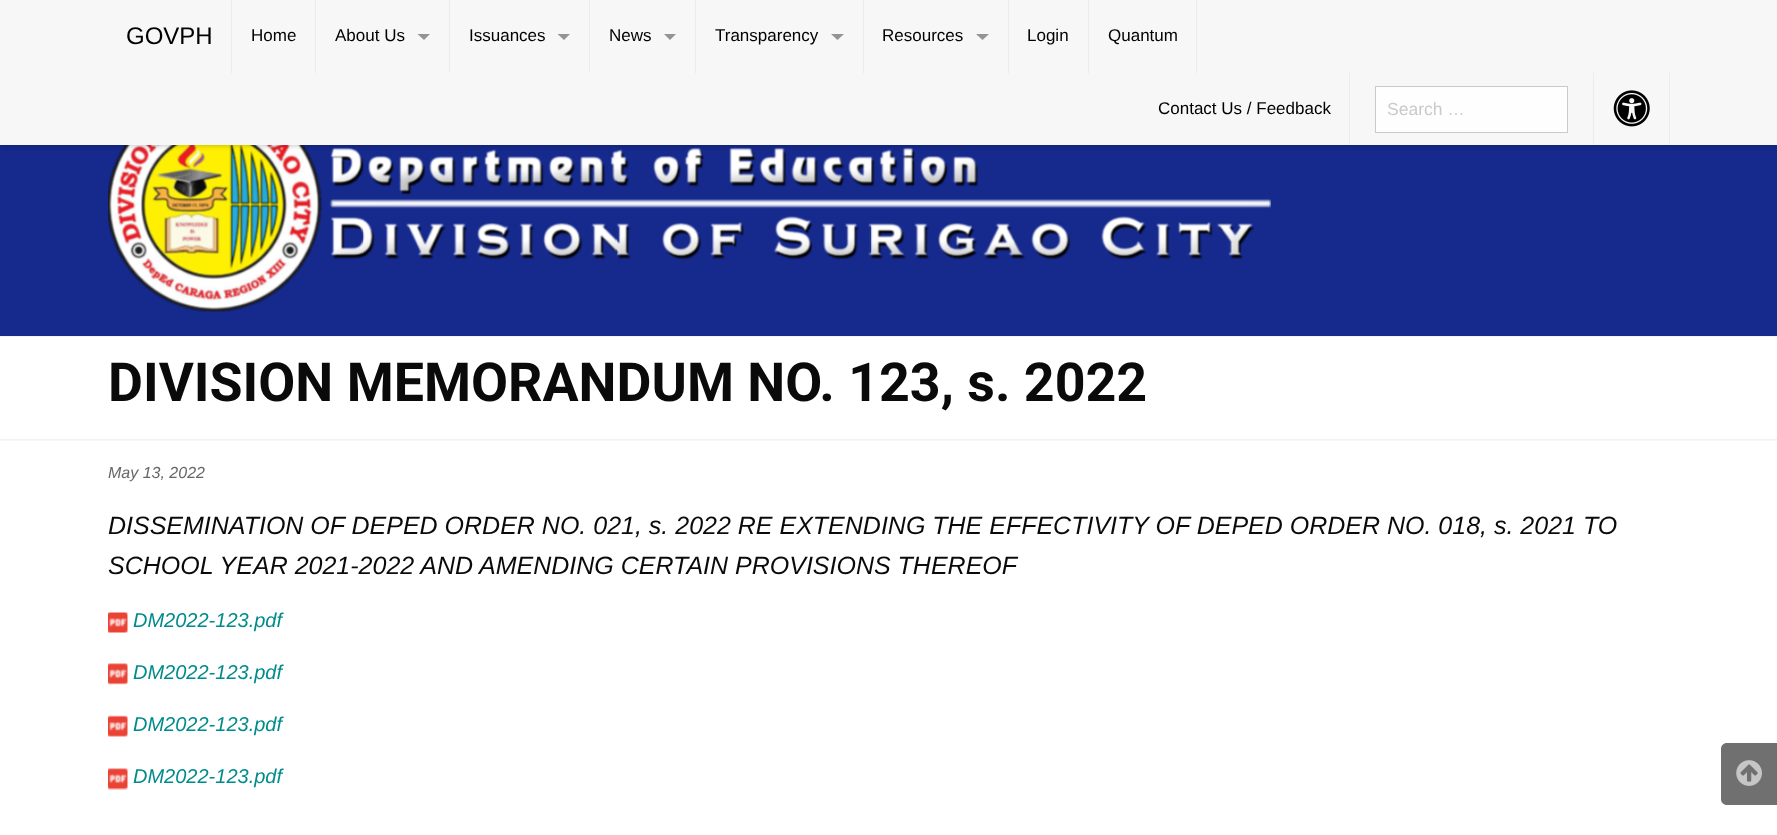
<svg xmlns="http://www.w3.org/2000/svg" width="1777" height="835">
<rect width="100%" height="100%" fill="#fff"/>
<rect y="145" width="1777" height="191" fill="#16298d"/>
<image x="108" y="145" width="1163" height="167" href="media/2.png"/>
<rect y="1" width="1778" height="145" fill="#00000033" filter="blur(2.5px)"/>
<rect width="1777" height="145" fill="#f7f7f7"/>
<rect x="231" width="1" height="73" fill="#ebebeb"/>
<text x="126" y="44" style="font-family:Liberation Sans;font-size:24px;fill:#000">GOVPH</text>
<rect x="315" width="1" height="73" fill="#ebebeb"/>
<text x="251" y="41" style="font-family:Liberation Sans;font-size:17px;fill:#000">Home</text>
<rect x="449" width="1" height="73" fill="#ebebeb"/>
<text x="335" y="41" style="font-family:Liberation Sans;font-size:17px;fill:#000">About Us</text>
<path d="M417.5 34h12.5l-6 6z" fill="#949494"/>
<rect x="589" width="1" height="73" fill="#ebebeb"/>
<text x="469" y="41" style="font-family:Liberation Sans;font-size:17px;fill:#000">Issuances</text>
<path d="M557.5 34h12.5l-6 6z" fill="#949494"/>
<rect x="695" width="1" height="73" fill="#ebebeb"/>
<text x="609" y="41" style="font-family:Liberation Sans;font-size:17px;fill:#000">News</text>
<path d="M664 34h12l-6 6z" fill="#949494"/>
<rect x="863" width="1" height="73" fill="#ebebeb"/>
<text x="715" y="41" style="font-family:Liberation Sans;font-size:17px;fill:#000">Transparency</text>
<path d="M831 34h13l-6.5 6z" fill="#949494"/>
<rect x="1008" width="1" height="73" fill="#ebebeb"/>
<text x="882" y="41" style="font-family:Liberation Sans;font-size:17px;fill:#000">Resources</text>
<path d="M976 34h13l-6.5 6z" fill="#949494"/>
<rect x="1088" width="1" height="73" fill="#ebebeb"/>
<text x="1027" y="41" style="font-family:Liberation Sans;font-size:17px;fill:#000">Login</text>
<rect x="1196" width="1" height="73" fill="#ebebeb"/>
<text x="1108" y="41" style="font-family:Liberation Sans;font-size:17px;fill:#000">Quantum</text>
<rect x="1349" y="73" width="1" height="72" fill="#ebebeb"/>
<text x="1158" y="114" style="font-family:Liberation Sans;font-size:17px;fill:#000">Contact Us / Feedback</text>
<rect x="1593" y="73" width="1" height="72" fill="#ebebeb"/>
<rect x="1375.5" y="86.5" width="192" height="46" fill="#fefefe" stroke="#cacaca"/>
<text x="1387" y="115" style="font-family:Liberation Sans;font-size:17.5px;fill:#cacaca">Search …</text>
<rect x="1669" y="73" width="1" height="72" fill="#ebebeb"/>
<image x="1613" y="90" width="37" height="37" href="media/1.png"/>
<rect y="336" width="1777" height="1" fill="#f2f2f2"/>
<rect y="439" width="1777" height="1" fill="#f2f2f2"/>
<text x="108" y="401" style="font-family:Roboto;font-size:53.75px;font-weight:bold;fill:#0a0a0a">DIVISION MEMORANDUM NO. 123, s. 2022</text>
<rect y="440" width="1777" height="1" fill="#f7f7f7"/>
<text x="108" y="478" style="font-family:Liberation Sans;font-size:16px;font-style:italic;fill:#666">May 13, 2022</text>
<text x="108" y="534" style="font-family:Liberation Sans;font-size:25px;font-style:italic;fill:#0a0a0a">DISSEMINATION OF DEPED ORDER NO. 021, s. 2022 RE EXTENDING THE EFFECTIVITY OF DEPED ORDER NO. 018, s. 2021 TO</text>
<text x="108" y="574" style="font-family:Liberation Sans;font-size:25px;font-style:italic;fill:#0a0a0a">SCHOOL YEAR 2021-2022 AND AMENDING CERTAIN PROVISIONS THEREOF</text>
<image x="108" y="612" width="20" height="21" href="media/3.png"/>
<text x="133" y="627" style="font-family:Liberation Sans;font-size:20px;font-style:italic;fill:#008b8b">DM2022-123.pdf</text>
<image x="108" y="663" width="20" height="22" href="media/4.png"/>
<text x="133" y="679" style="font-family:Liberation Sans;font-size:20px;font-style:italic;fill:#008b8b">DM2022-123.pdf</text>
<image x="108" y="715" width="20" height="22" href="media/5.png"/>
<text x="133" y="731" style="font-family:Liberation Sans;font-size:20px;font-style:italic;fill:#008b8b">DM2022-123.pdf</text>
<image x="108" y="768" width="20" height="22" href="media/6.png"/>
<text x="133" y="783" style="font-family:Liberation Sans;font-size:20px;font-style:italic;fill:#008b8b">DM2022-123.pdf</text>
<path d="M1727 743h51v62h-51c-3.5 0-6-2.5-6-6v-50c0-3.5 2.5-6 6-6z" fill="#707070"/>
<image x="1736" y="760" width="26" height="26" href="media/7.png"/>
</svg>
